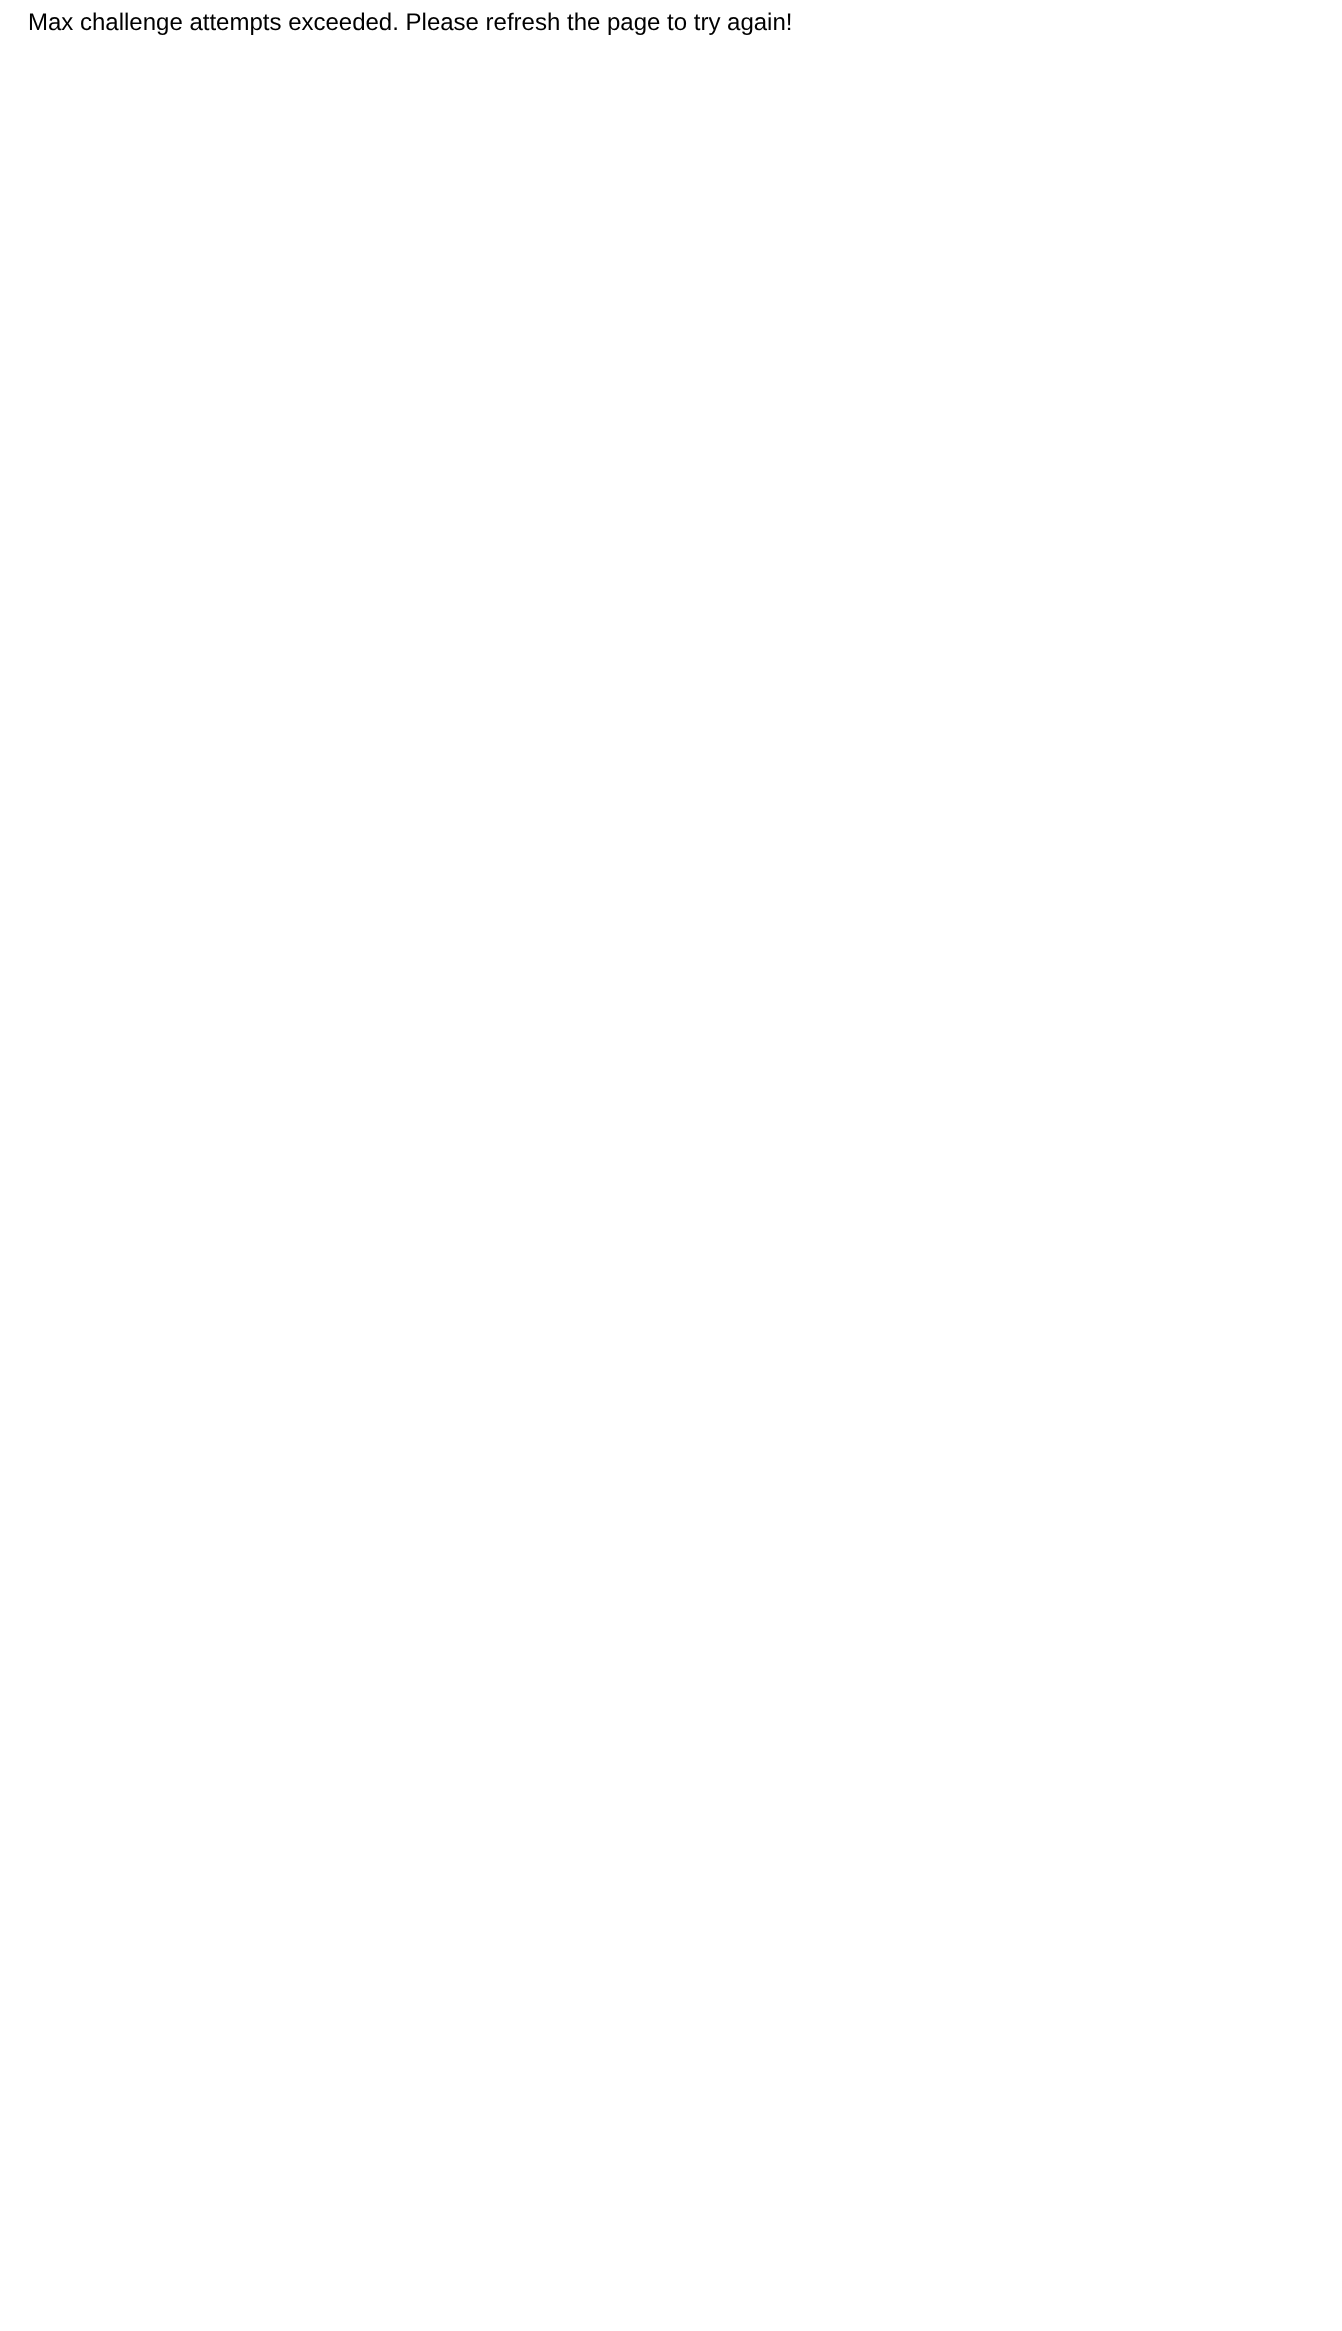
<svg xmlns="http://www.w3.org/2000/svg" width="1342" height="2331">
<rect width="100%" height="100%" fill="#fff"/>
<text x="28" y="30" style="font-family:Liberation Sans;font-size:24px;fill:#000">Max challenge attempts exceeded. Please refresh the page to try again!</text>
</svg>
